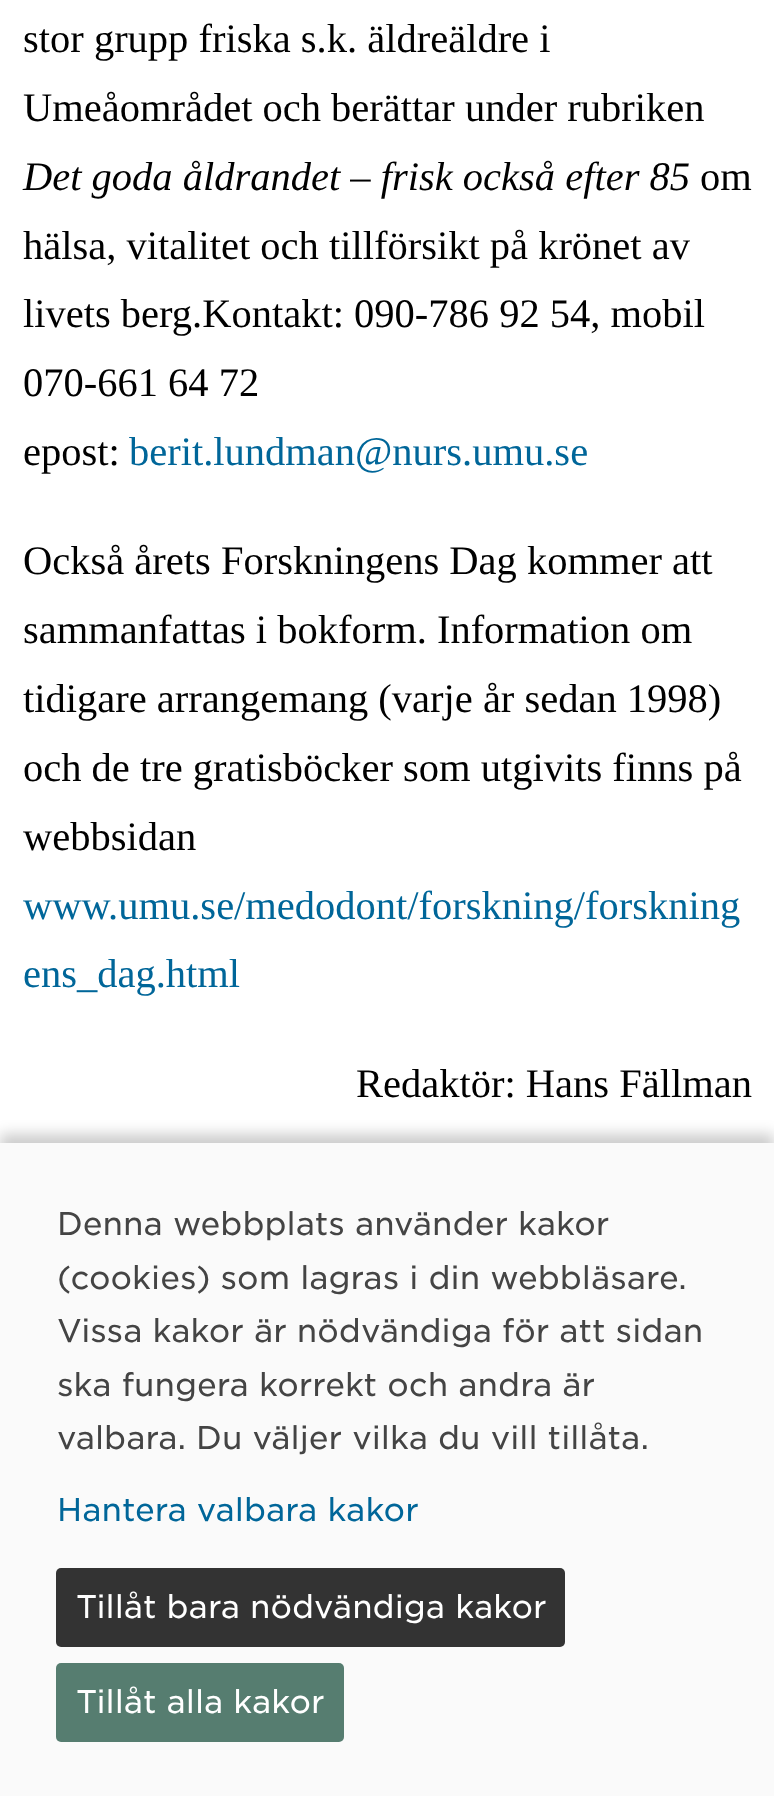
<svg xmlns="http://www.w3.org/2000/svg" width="774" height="1796">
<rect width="100%" height="100%" fill="#fff"/>
<text x="23" y="52" style="font-family:Liberation Serif;font-size:40.5px;fill:#000">stor grupp friska s.k. äldreäldre i</text>
<text x="23" y="121" style="font-family:Liberation Serif;font-size:40.5px;fill:#000">Umeåområdet och berättar under rubriken</text>
<text x="23" y="190" style="font-family:Liberation Serif;font-size:40.5px;font-style:italic;fill:#000">Det goda åldrandet – frisk också efter 85</text>
<text x="700" y="190" style="font-family:Liberation Serif;font-size:40.5px;fill:#000">om</text>
<text x="23" y="259" style="font-family:Liberation Serif;font-size:40.5px;fill:#000">hälsa, vitalitet och tillförsikt på krönet av</text>
<text x="23" y="327" style="font-family:Liberation Serif;font-size:40.5px;fill:#000">livets berg.Kontakt: 090-786 92 54, mobil</text>
<text x="23" y="396" style="font-family:Liberation Serif;font-size:40.5px;fill:#000">070-661 64 72</text>
<text x="23" y="465" style="font-family:Liberation Serif;font-size:40.5px;fill:#000">epost:</text>
<text x="129" y="465" style="font-family:Liberation Serif;font-size:40.5px;fill:#069">berit.lundman@nurs.umu.se</text>
<text x="23" y="574" style="font-family:Liberation Serif;font-size:40.5px;fill:#000">Också årets Forskningens Dag kommer att</text>
<text x="23" y="643" style="font-family:Liberation Serif;font-size:40.5px;fill:#000">sammanfattas i bokform. Information om</text>
<text x="23" y="712" style="font-family:Liberation Serif;font-size:40.5px;fill:#000">tidigare arrangemang (varje år sedan 1998)</text>
<text x="23" y="781" style="font-family:Liberation Serif;font-size:40.5px;fill:#000">och de tre gratisböcker som utgivits finns på</text>
<text x="23" y="850" style="font-family:Liberation Serif;font-size:40.5px;fill:#000">webbsidan</text>
<text x="23" y="919" style="font-family:Liberation Serif;font-size:40.5px;fill:#069">www.umu.se/medodont/forskning/forskning</text>
<text x="23" y="987" style="font-family:Liberation Serif;font-size:40.5px;fill:#069">ens_dag.html</text>
<text x="356" y="1097" style="font-family:Liberation Serif;font-size:40.5px;fill:#000">Redaktör: Hans Fällman</text>
<rect y="1134" width="774" height="655" fill="#00000033" filter="blur(7px)"/>
<rect y="1143" width="774" height="653" fill="#fafafa"/>
<text x="57" y="1235" style="font-family:'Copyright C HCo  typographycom';font-size:31.5px;font-weight:300;fill:#444">Denna webbplats använder kakor</text>
<text x="57" y="1289" style="font-family:'Copyright C HCo  typographycom';font-size:31.5px;font-weight:300;fill:#444">(cookies) som lagras i din webbläsare.</text>
<text x="57" y="1342" style="font-family:'Copyright C HCo  typographycom';font-size:31.5px;font-weight:300;fill:#444">Vissa kakor är nödvändiga för att sidan</text>
<text x="57" y="1396" style="font-family:'Copyright C HCo  typographycom';font-size:31.5px;font-weight:300;fill:#444">ska fungera korrekt och andra är</text>
<text x="57" y="1449" style="font-family:'Copyright C HCo  typographycom';font-size:31.5px;font-weight:300;fill:#444">valbara. Du väljer vilka du vill tillåta.</text>
<text x="57" y="1521" style="font-family:'Copyright C HCo  typographycom';font-size:31.5px;font-weight:300;fill:#069">Hantera valbara kakor</text>
<rect x="56" y="1568" width="509" height="79" rx="5" fill="#333"/>
<text x="76" y="1618" style="font-family:'Copyright C HCo  typographycom';font-size:31.5px;font-weight:300;fill:#fff">Tillåt bara nödvändiga kakor</text>
<rect x="56" y="1663" width="288" height="79" rx="5" fill="#567d70"/>
<text x="76" y="1713" style="font-family:'Copyright C HCo  typographycom';font-size:31.5px;font-weight:300;fill:#fff">Tillåt alla kakor</text>
</svg>
